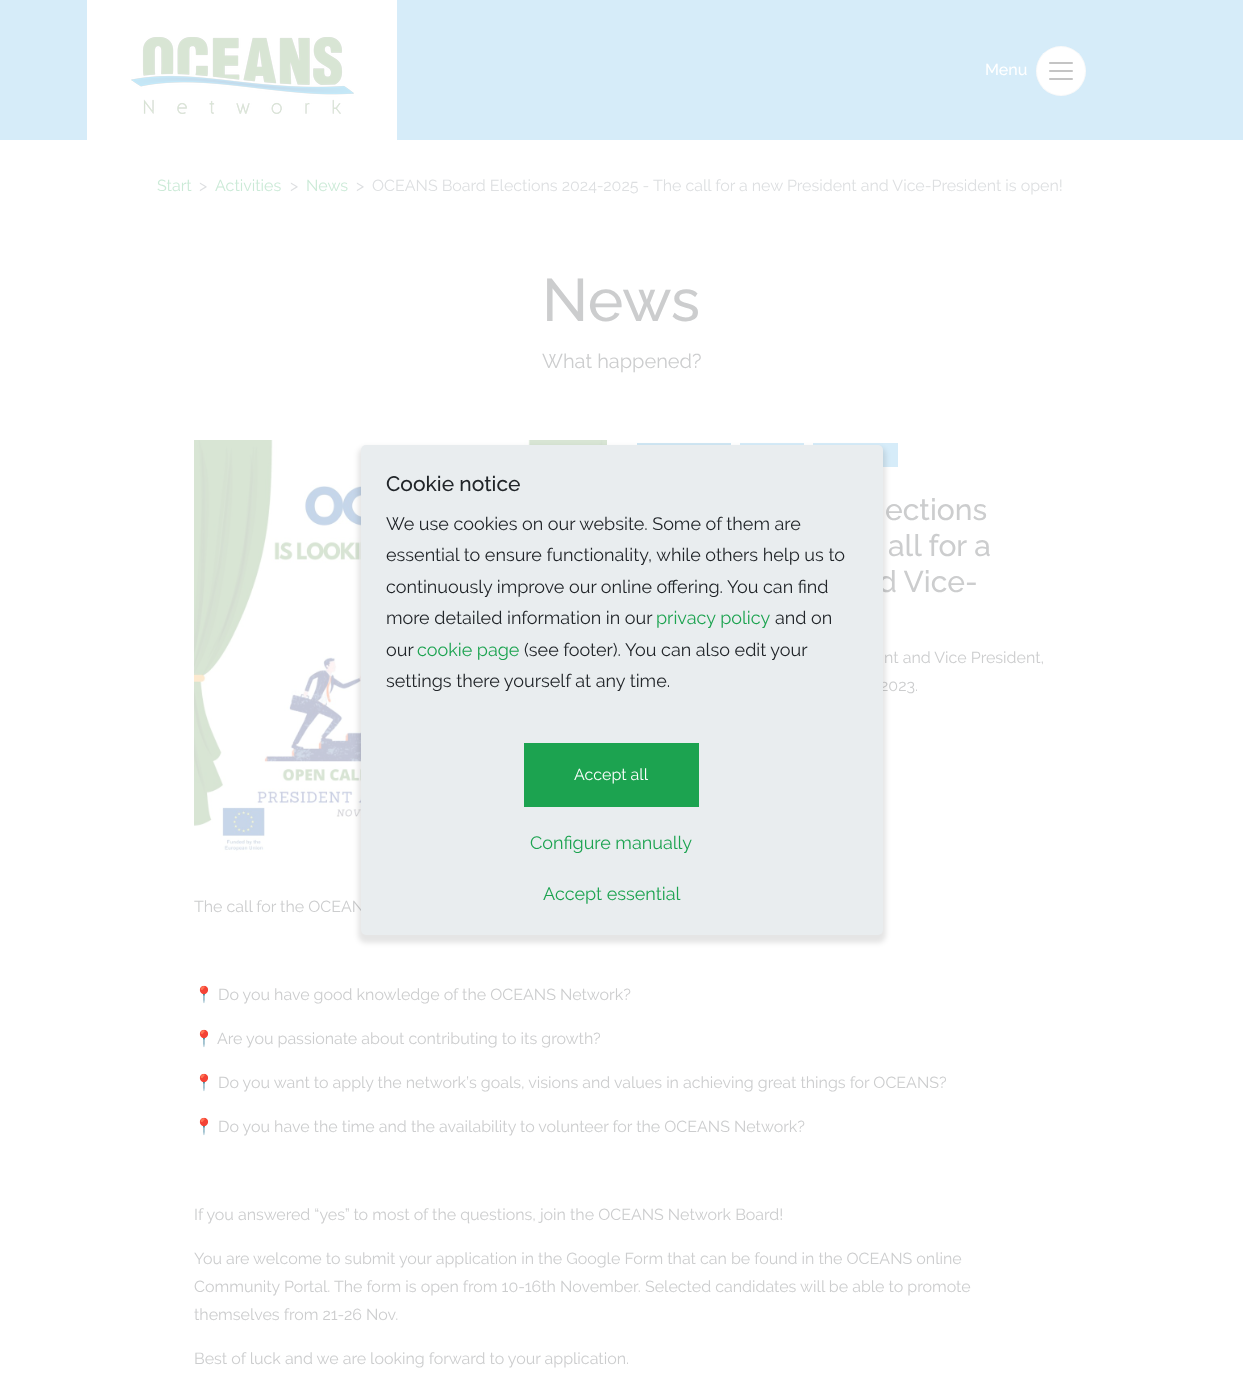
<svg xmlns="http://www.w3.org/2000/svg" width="1243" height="1380">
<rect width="100%" height="100%" fill="#fff"/>
<rect width="1243" height="140" fill="#d6ecf9"/>
<rect x="87" width="310" height="140" fill="#fff"/>
<image x="131" y="36" width="223" height="78" href="media/1.png"/>
<text x="985" y="75" style="font-family:Raleway;font-size:16px;font-weight:500;fill:#fff">Menu</text>
<circle cx="1061" cy="71" r="25" fill="#fff"/>
<circle cx="1061" cy="71" r="24.5" fill="none" stroke="#c4c4c41a"/>
<image x="1049" y="62" width="24" height="18" href="media/2.png"/>
<text x="157" y="191" style="font-family:Raleway;font-size:16px;fill:#cbead7">Start</text>
<text x="199" y="191" style="font-family:Raleway;font-size:16px;fill:#dddfe1">&gt;</text>
<text x="215" y="191" style="font-family:Raleway;font-size:16px;fill:#cbead7">Activities</text>
<text x="290" y="191" style="font-family:Raleway;font-size:16px;fill:#dddfe1">&gt;</text>
<text x="306" y="191" style="font-family:Raleway;font-size:16px;fill:#cbead7">News</text>
<text x="356" y="191" style="font-family:Raleway;font-size:16px;fill:#dddfe1">&gt;</text>
<text x="372" y="191" style="font-family:Raleway;font-size:16px;fill:#dddfe1">OCEANS Board Elections 2024-2025 - The call for a new President and Vice-President is open!</text>
<text x="542" y="321" style="font-family:Raleway;font-size:60px;font-weight:500;fill:#cccdce">News</text>
<text x="542" y="368" style="font-family:Raleway;font-size:20px;fill:#cccdce">What happened?</text>
<image x="194" y="440" width="413" height="413" href="media/3.png"/>
<rect x="637" y="443" width="94" height="2" fill="#d0e7f4"/>
<rect x="740" y="443" width="64" height="2" fill="#d6ecf9"/>
<rect x="813" y="443" width="85" height="24" fill="#d6ecf9"/>
<text x="885" y="520" style="font-family:Raleway;font-size:30px;font-weight:500;fill:#cccdce">ections</text>
<text x="888" y="556" style="font-family:Raleway;font-size:30px;font-weight:500;fill:#cccdce">all for a</text>
<text x="878" y="592" style="font-family:Raleway;font-size:30px;font-weight:500;fill:#cccdce">d Vice-</text>
<text x="884" y="663" style="font-family:Raleway;font-size:16px;fill:#cccdce">nt and Vice President,</text>
<text x="880" y="691" style="font-family:Raleway;font-size:16px;fill:#cccdce">2023.</text>
<text x="194" y="912" style="font-family:Raleway;font-size:16px;fill:#cccdce">The call for the OCEAN</text>
<text x="194" y="1000" style="font-family:Noto Color Emoji;font-size:16px;fill:#cccdce">📍</text>
<text x="218" y="1000" style="font-family:Raleway;font-size:16px;fill:#cccdce">Do you have good knowledge of the OCEANS Network?</text>
<text x="194" y="1044" style="font-family:Noto Color Emoji;font-size:16px;fill:#cccdce">📍</text>
<text x="217" y="1044" style="font-family:Raleway;font-size:16px;fill:#cccdce">Are you passionate about contributing to its growth?</text>
<text x="194" y="1088" style="font-family:Noto Color Emoji;font-size:16px;fill:#cccdce">📍</text>
<text x="218" y="1088" style="font-family:Raleway;font-size:16px;fill:#cccdce">Do you want to apply the network’s goals, visions and values in achieving great things for OCEANS?</text>
<text x="194" y="1132" style="font-family:Noto Color Emoji;font-size:16px;fill:#cccdce">📍</text>
<text x="218" y="1132" style="font-family:Raleway;font-size:16px;fill:#cccdce">Do you have the time and the availability to volunteer for the OCEANS Network?</text>
<text x="194" y="1220" style="font-family:Raleway;font-size:16px;fill:#cccdce">If you answered “yes” to most of the questions, join the OCEANS Network Board!</text>
<text x="194" y="1264" style="font-family:Raleway;font-size:16px;fill:#cccdce">You are welcome to submit your application in the Google Form that can be found in the OCEANS online</text>
<text x="194" y="1292" style="font-family:Raleway;font-size:16px;fill:#cccdce">Community Portal. The form is open from 10-16th November. Selected candidates will be able to promote</text>
<text x="194" y="1320" style="font-family:Raleway;font-size:16px;fill:#cccdce">themselves from 21-26 Nov.</text>
<text x="194" y="1364" style="font-family:Raleway;font-size:16px;fill:#cccdce">Best of luck and we are looking forward to your application.</text>
<rect x="358" y="447" width="528" height="496" rx="8" fill="#0000001a" filter="blur(2.5px)"/>
<rect x="361" y="445" width="522" height="490" rx="5" fill="#e9edef"/>
<text x="386" y="491" style="font-family:Raleway;font-size:21px;font-weight:500;fill:#212529">Cookie notice</text>
<text x="386" y="530" style="font-family:Raleway;font-size:18px;fill:#212529">We use cookies on our website. Some of them are</text>
<text x="386" y="561" style="font-family:Raleway;font-size:18px;fill:#212529">essential to ensure functionality, while others help us to</text>
<text x="386" y="593" style="font-family:Raleway;font-size:18px;fill:#212529">continuously improve our online offering. You can find</text>
<text x="386" y="624" style="font-family:Raleway;font-size:18px;fill:#212529">more detailed information in our</text>
<text x="656" y="624" style="font-family:Raleway;font-size:18px;fill:#1ca350">privacy policy</text>
<text x="775" y="624" style="font-family:Raleway;font-size:18px;fill:#212529">and on</text>
<text x="386" y="656" style="font-family:Raleway;font-size:18px;fill:#212529">our</text>
<text x="417" y="656" style="font-family:Raleway;font-size:18px;fill:#1ca350">cookie page</text>
<text x="524" y="656" style="font-family:Raleway;font-size:18px;fill:#212529">(see footer). You can also edit your</text>
<text x="386" y="687" style="font-family:Raleway;font-size:18px;fill:#212529">settings there yourself at any time.</text>
<rect x="524" y="743" width="175" height="64" fill="#1ca350"/>
<text x="574" y="780" style="font-family:Raleway;font-size:16px;fill:#fff">Accept all</text>
<text x="530" y="849" style="font-family:Raleway;font-size:18px;fill:#1ca350">Configure manually</text>
<text x="543" y="900" style="font-family:Raleway;font-size:18px;fill:#1ca350">Accept essential</text>
</svg>
